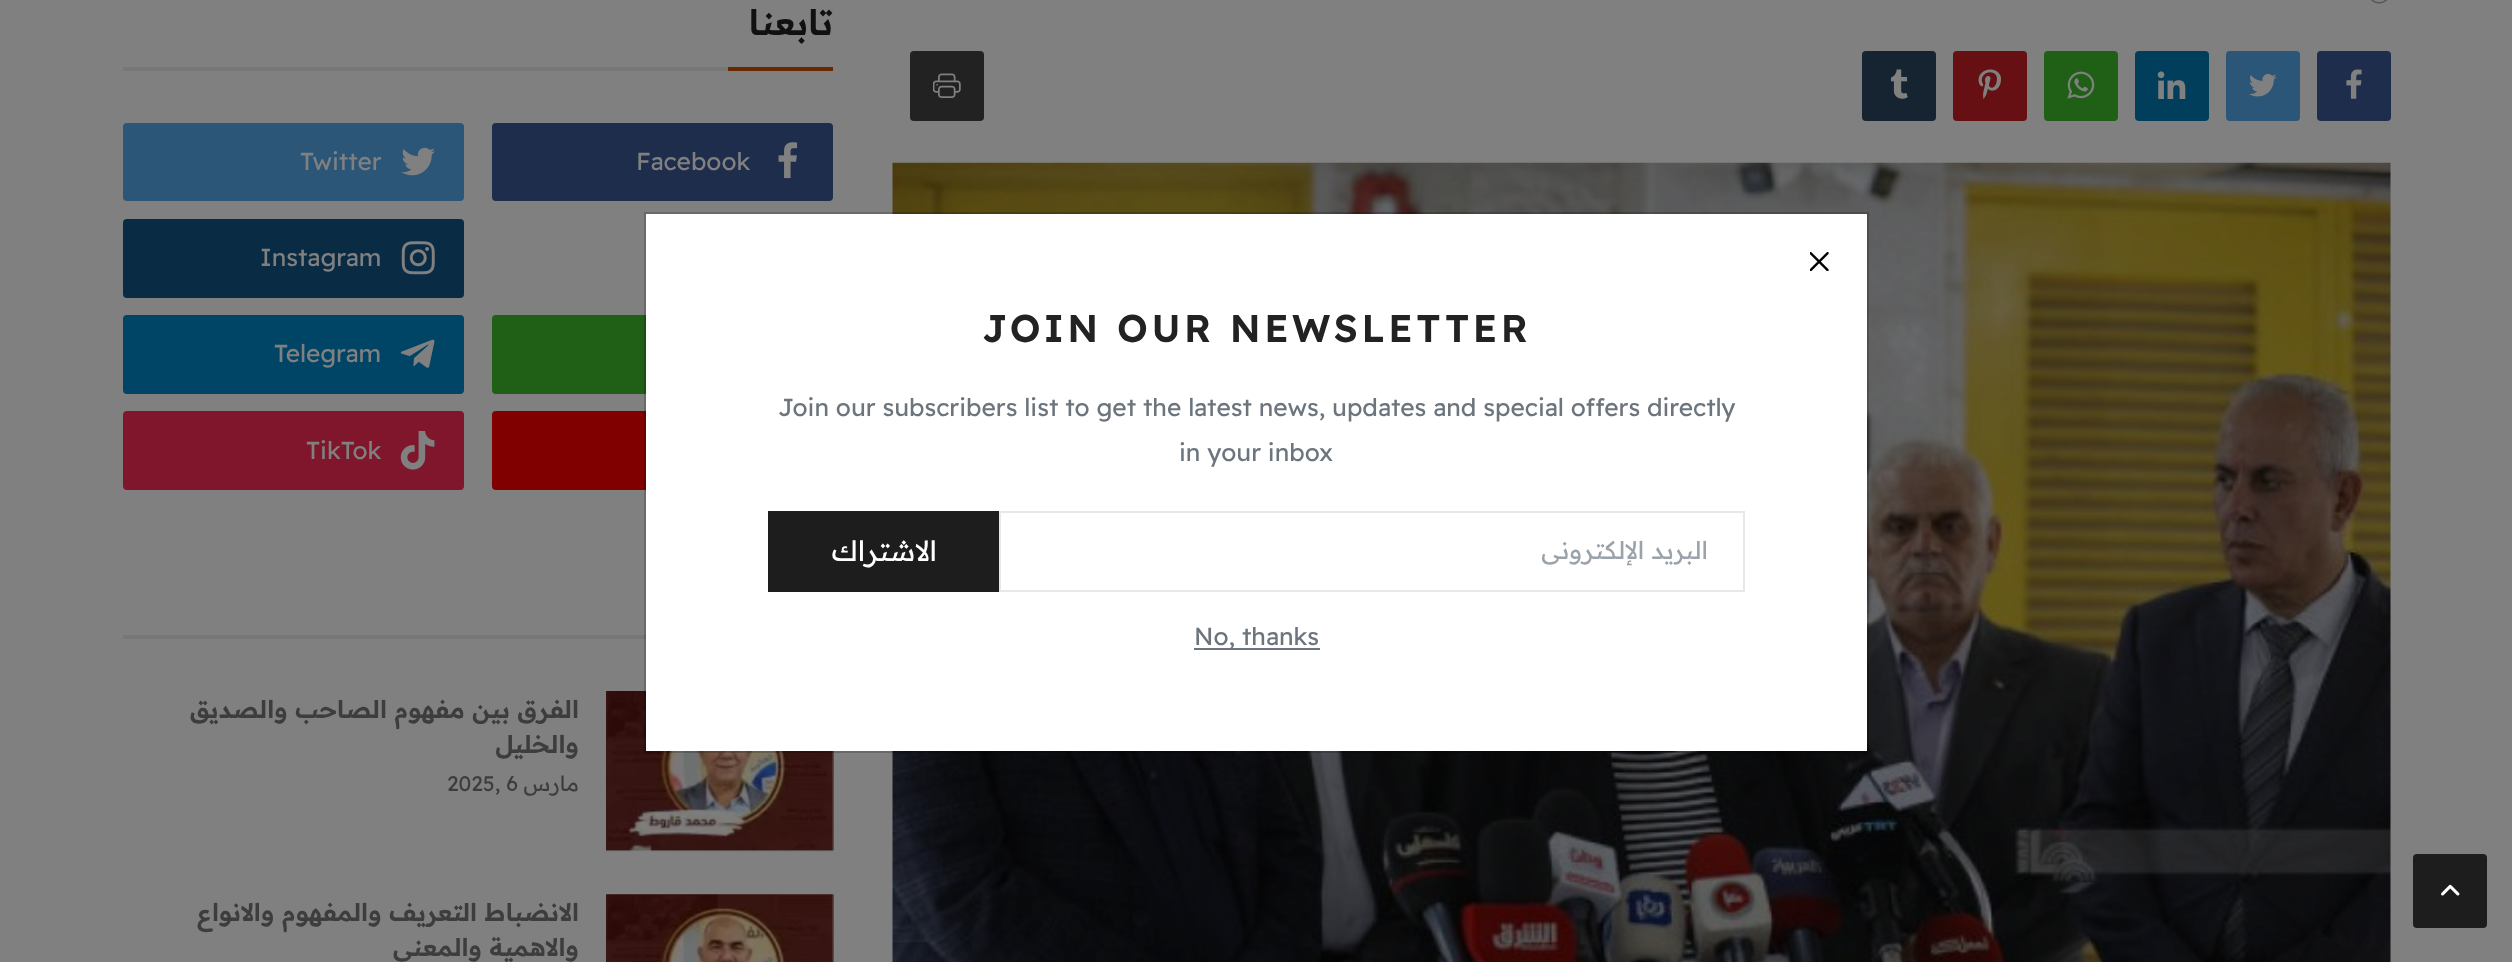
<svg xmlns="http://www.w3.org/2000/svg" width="2512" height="962">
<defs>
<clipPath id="clip1"><rect x="1036" y="536" width="672" height="31"/></clipPath>
</defs>
<rect width="100%" height="100%" fill="#808080"/>
<rect x="123" y="67" width="605" height="4" fill="#777"/>
<text x="833" y="35" style="font-family:Readex Pro;font-size:35px;font-weight:600;direction:rtl;fill:#111">تابعنا</text>
<rect x="728" y="67" width="105" height="4" fill="#682900"/>
<rect x="123" y="123" width="341" height="78" rx="4" fill="#2b5677"/>
<text x="300" y="170" style="font-family:Readex Pro;font-size:24.5px;fill:#808080">Twitter</text>
<image x="401" y="147" width="34" height="29" href="media/1.png"/>
<rect x="492" y="123" width="341" height="78" rx="4" fill="#1e2d4c"/>
<text x="636" y="170" style="font-family:Readex Pro;font-size:24.5px;fill:#808080">Facebook</text>
<image x="778" y="142" width="20" height="37" href="media/2.png"/>
<rect x="123" y="219" width="341" height="79" rx="4" fill="#092b44"/>
<text x="260" y="266" style="font-family:Readex Pro;font-size:24.5px;fill:#808080">Instagram</text>
<image x="401" y="241" width="34" height="34" href="media/3.png"/>
<rect x="123" y="315" width="341" height="79" rx="4" fill="#046"/>
<text x="274" y="362" style="font-family:Readex Pro;font-size:24.5px;fill:#808080">Telegram</text>
<image x="400" y="339" width="35" height="29" href="media/4.png"/>
<rect x="492" y="315" width="341" height="79" rx="4" fill="#1f5f16"/>
<rect x="123" y="411" width="341" height="79" rx="4" fill="#7f162b"/>
<text x="306" y="459" style="font-family:Readex Pro;font-size:24.5px;fill:#808080">TikTok</text>
<image x="400" y="431" width="35" height="39" href="media/5.png"/>
<rect x="492" y="411" width="341" height="79" rx="4" fill="#800000"/>
<rect x="123" y="635" width="523" height="4" fill="#777"/>
<text x="579" y="718" style="font-family:Readex Pro;font-size:24.5px;font-weight:600;direction:rtl;fill:#3d3d3d">الفرق بين مفهوم الصاحب والصديق</text>
<text x="579" y="753" style="font-family:Readex Pro;font-size:24.5px;font-weight:600;direction:rtl;fill:#3d3d3d">والخليل</text>
<text x="447" y="791" style="font-family:Readex Pro;font-size:21px;fill:#3d3d3d">2025, 6</text>
<text x="579" y="791" style="font-family:Readex Pro;font-size:21px;direction:rtl;fill:#3d3d3d">مارس</text>
<rect x="606" y="751" width="227" height="100" fill="#7d7d7d"/>
<image x="606" y="691" width="228" height="161" href="media/6.png"/>
<text x="579" y="921" style="font-family:Readex Pro;font-size:24.5px;font-weight:600;direction:rtl;fill:#3d3d3d">الانضباط التعريف والمفهوم والانواع</text>
<text x="579" y="956" style="font-family:Readex Pro;font-size:24.5px;font-weight:600;direction:rtl;fill:#3d3d3d">والاهمية والمعنى</text>
<rect x="606" y="894" width="227" height="68" fill="#7d7d7d"/>
<image x="606" y="894" width="228" height="68" href="media/7.png"/>
<image x="2371" y="0" width="17" height="4" href="media/8.png"/>
<rect x="910" y="51" width="74" height="70" rx="4" fill="#222"/>
<image x="933" y="73" width="28" height="25" href="media/9.png"/>
<rect x="1862" y="51" width="74" height="70" rx="4" fill="#162431"/>
<image x="1890" y="69" width="18" height="30" href="media/10.png"/>
<rect x="1953" y="51" width="74" height="70" rx="4" fill="#661014"/>
<image x="1978" y="69" width="23" height="30" href="media/11.png"/>
<rect x="2044" y="51" width="74" height="70" rx="4" fill="#1f5f16"/>
<image x="2067" y="71" width="28" height="28" href="media/12.png"/>
<rect x="2135" y="51" width="74" height="70" rx="4" fill="#003e5b"/>
<image x="2157" y="71" width="29" height="28" href="media/13.png"/>
<rect x="2226" y="51" width="74" height="70" rx="4" fill="#2b5677"/>
<image x="2249" y="74" width="28" height="23" href="media/14.png"/>
<rect x="2317" y="51" width="74" height="70" rx="4" fill="#1e2d4c"/>
<image x="2346" y="69" width="16" height="30" href="media/15.png"/>
<image x="892" y="162" width="1499" height="800" href="media/16.png"/>
<rect x="646" y="214" width="1221" height="537" fill="#fff"/>
<rect x="645" y="213" width="1223" height="539" fill="none" stroke="#0000002e" stroke-width="2"/>
<image x="1810" y="252" width="19" height="19" href="media/17.png"/>
<text x="982" y="342" style="font-family:Readex Pro;font-size:38.5px;font-weight:600;letter-spacing:3.5px;fill:#222">JOIN OUR NEWSLETTER</text>
<text x="778" y="416" style="font-family:Readex Pro;font-size:24.5px;fill:#6c757d">Join our subscribers list to get the latest news, updates and special offers directly</text>
<text x="1179" y="461" style="font-family:Readex Pro;font-size:24.5px;fill:#6c757d">in your inbox</text>
<rect x="768" y="511" width="231" height="81" fill="#1d1d1d"/>
<text x="937" y="561" style="font-family:Readex Pro;font-size:28px;direction:rtl;fill:#fff">الاشتراك</text>
<rect x="1000" y="512" width="744" height="79" fill="none" stroke="#e6e8eb" stroke-width="2"/>
<g clip-path="url(#clip1)">
<text x="1708" y="559" style="font-family:Readex Pro;font-size:24.5px;direction:rtl;fill:#9aa2aa">البريد الإلكتروني</text>
</g>
<rect x="1194" y="648" width="126" height="2" fill="#6c757d"/>
<text x="1194" y="645" style="font-family:Readex Pro;font-size:24.5px;fill:#6c757d">No, thanks</text>
<rect x="2413" y="854" width="74" height="74" rx="4" fill="#1d1d1d"/>
<image x="2441" y="884" width="19" height="12" href="media/18.png"/>
</svg>
